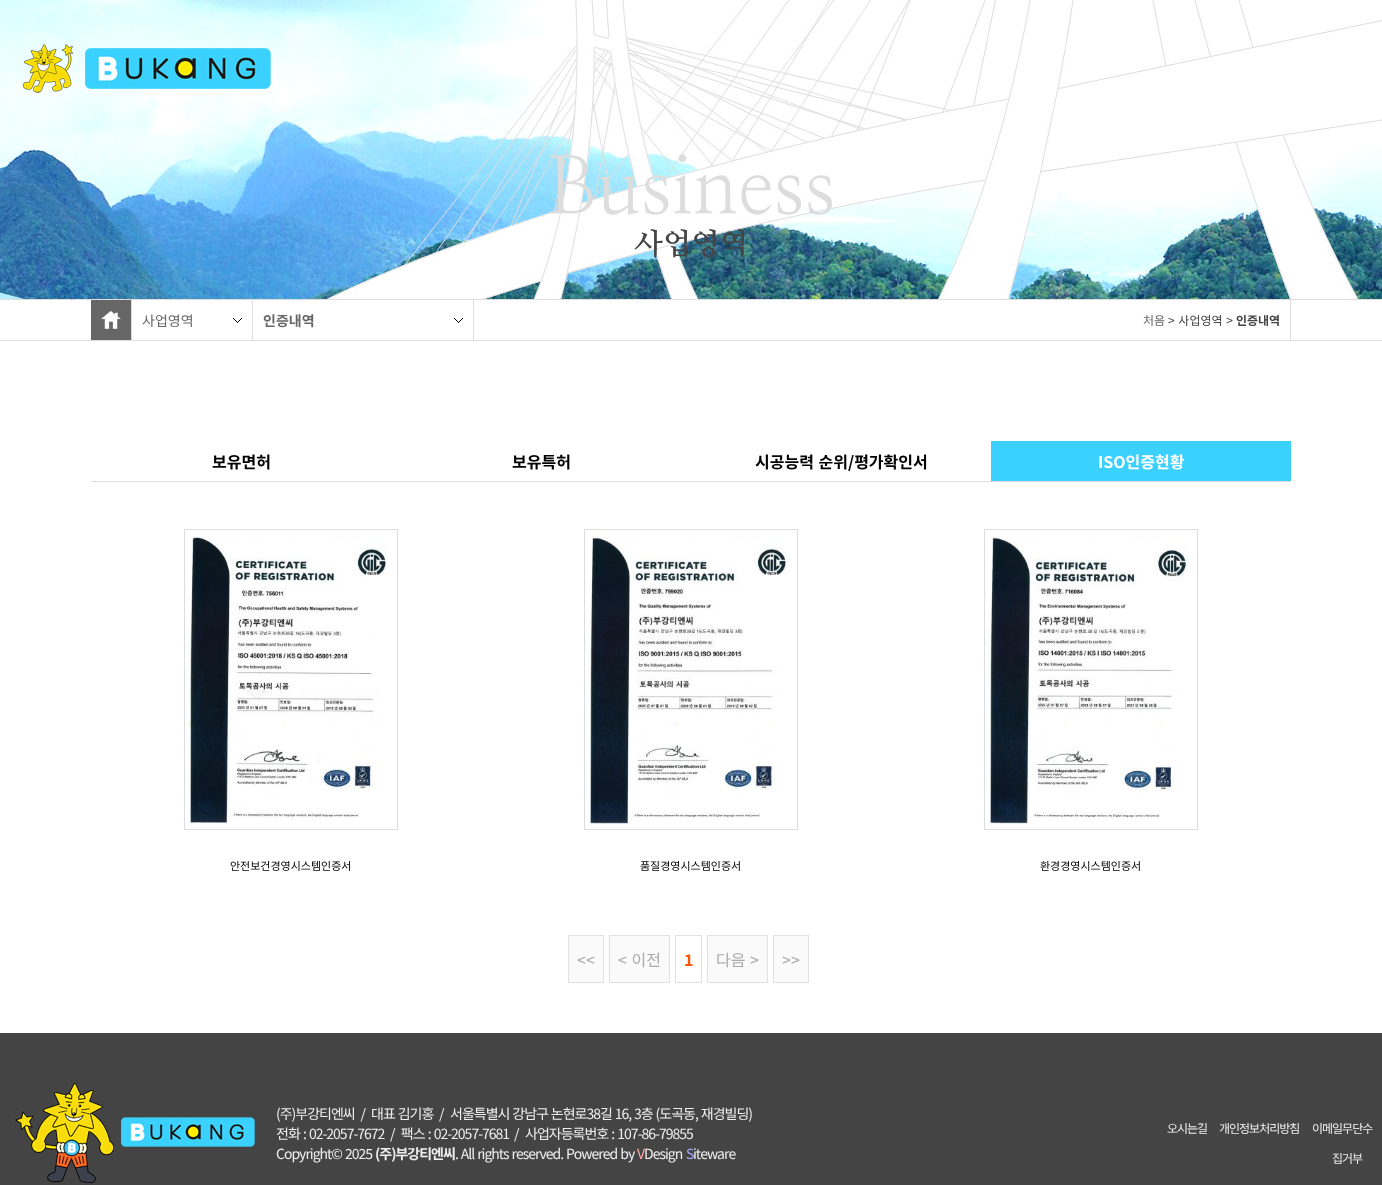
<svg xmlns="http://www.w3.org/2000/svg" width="1382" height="1185">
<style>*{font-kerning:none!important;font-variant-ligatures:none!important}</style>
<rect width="100%" height="100%" fill="#fff"/>
<image x="0" y="0" width="1382" height="300" href="media/2.png"/>
<image x="23" y="44" width="248" height="49" href="media/1.png"/>
<text x="547" y="214" style="font-family:NanumMyeongjo;font-size:80px;fill:#ddd">Business</text>
<text x="634" y="254" style="font-family:NanumMyeongjo;font-size:30px;font-weight:bold;fill:#444">사업영역</text>
<rect y="340" width="1382" height="1" fill="#ddd"/>
<rect x="91" y="300" width="40" height="40" fill="#666"/>
<rect x="131" y="300" width="1" height="40" fill="#ddd"/>
<image x="101" y="310" width="20" height="19" href="media/3.png"/>
<rect x="252" y="300" width="1" height="40" fill="#ddd"/>
<image x="233" y="318" width="9" height="5" href="media/4.png"/>
<text x="142" y="326" style="font-family:Noto Sans KR;font-size:14px;fill:#666">사업영역</text>
<rect x="473" y="300" width="1" height="40" fill="#ddd"/>
<image x="454" y="318" width="9" height="5" href="media/4.png"/>
<text x="263" y="326" style="font-family:Noto Sans KR;font-size:14px;font-weight:bold;fill:#666">인증내역</text>
<rect x="1290" y="300" width="1" height="40" fill="#ddd"/>
<text x="1143" y="325" style="font-family:Noto Sans KR;font-size:12px;fill:#666">처음</text>
<text x="1168" y="325" word-spacing="1" style="font-family:Noto Sans KR;font-size:12px;fill:#444">&gt; 사업영역 &gt;</text>
<text x="1236" y="325" style="font-family:Noto Sans KR;font-size:12px;font-weight:bold;fill:#444">인증내역</text>
<rect x="91" y="481" width="1200" height="1" fill="#ddd"/>
<text x="212" y="468" style="font-family:Noto Sans KR;font-size:16px;font-weight:bold;fill:#000">보유면허</text>
<text x="512" y="468" style="font-family:Noto Sans KR;font-size:16px;font-weight:bold;fill:#000">보유특허</text>
<text x="755" y="468" word-spacing="1" style="font-family:Noto Sans KR;font-size:16px;font-weight:bold;fill:#000">시공능력 순위/평가확인서</text>
<rect x="991" y="441" width="300" height="40" fill="#3bd1ff"/>
<text x="1098" y="468" style="font-family:Noto Sans KR;font-size:16px;font-weight:bold;fill:#fff">ISO인증현황</text>
<rect x="184.5" y="529.5" width="213" height="300" fill="none" stroke="#ddd"/>
<image x="185" y="536" width="204" height="288" href="media/5.png"/>
<text x="230" y="870" style="font-family:Noto Sans KR;font-size:11px;fill:#000">안전보건경영시스템인증서</text>
<rect x="584.5" y="529.5" width="213" height="300" fill="none" stroke="#ddd"/>
<image x="585" y="530" width="204" height="294" href="media/6.png"/>
<text x="640" y="870" style="font-family:Noto Sans KR;font-size:11px;fill:#000">품질경영시스템인증서</text>
<rect x="984.5" y="529.5" width="213" height="300" fill="none" stroke="#ddd"/>
<image x="985" y="535" width="204" height="289" href="media/7.png"/>
<text x="1040" y="870" style="font-family:Noto Sans KR;font-size:11px;fill:#000">환경경영시스템인증서</text>
<rect x="568.5" y="935.5" width="35" height="47" fill="#fafafa" stroke="#e1e1e1"/>
<text x="577" y="966" style="font-family:Noto Sans KR;font-size:16px;fill:#aaa">&lt;&lt;</text>
<rect x="609.5" y="935.5" width="60" height="47" fill="#fafafa" stroke="#e1e1e1"/>
<text x="618" y="966" word-spacing="1" style="font-family:Noto Sans KR;font-size:16px;fill:#aaa">&lt; 이전</text>
<rect x="675.5" y="935.5" width="26" height="47" fill="none" stroke="#e1e1e1"/>
<text x="684" y="966" style="font-family:Noto Sans KR;font-size:16px;font-weight:bold;fill:#f50">1</text>
<rect x="707.5" y="935.5" width="60" height="47" fill="#fafafa" stroke="#e1e1e1"/>
<text x="716" y="966" word-spacing="1" style="font-family:Noto Sans KR;font-size:16px;fill:#aaa">다음 &gt;</text>
<rect x="773.5" y="935.5" width="35" height="47" fill="#fafafa" stroke="#e1e1e1"/>
<text x="782" y="966" style="font-family:Noto Sans KR;font-size:16px;fill:#aaa">&gt;&gt;</text>
<rect y="1033" width="1382" height="152" fill="#444"/>
<image x="15" y="1083" width="240" height="100" href="media/8.png"/>
<text x="276" y="1119" word-spacing="0.75" style="font-family:Noto Sans KR;font-size:14px;letter-spacing:-1px;fill:#eee" xml:space="preserve">(주)부강티엔씨  /</text>
<text x="371" y="1119" word-spacing="0.75" style="font-family:Noto Sans KR;font-size:14px;letter-spacing:-1px;fill:#eee">대표 김기홍</text>
<text x="439" y="1119" style="font-family:Noto Sans KR;font-size:14px;letter-spacing:-1px;fill:#eee">/</text>
<text x="450" y="1119" word-spacing="0.75" style="font-family:Noto Sans KR;font-size:14px;letter-spacing:-1px;fill:#eee">서울특별시 강남구 논현로38길 16, 3층 (도곡동, 재경빌딩)</text>
<text x="276" y="1139" word-spacing="1" style="font-family:Noto Sans KR;font-size:14px;letter-spacing:-1px;fill:#eee">전화 : 02-2057-7672</text>
<text x="390" y="1139" word-spacing="1" style="font-family:Noto Sans KR;font-size:14px;letter-spacing:-1px;fill:#eee" xml:space="preserve">/  팩스 : 02-2057-7681</text>
<text x="514" y="1139" style="font-family:Noto Sans KR;font-size:14px;letter-spacing:-1px;fill:#eee">/</text>
<text x="525" y="1139" word-spacing="1" style="font-family:Noto Sans KR;font-size:14px;letter-spacing:-1px;fill:#eee">사업자등록번호 : 107-86-79855</text>
<text x="276" y="1159" word-spacing="0.75" style="font-family:Noto Sans KR;font-size:14px;letter-spacing:-1px;fill:#eee">Copyright© 2025</text>
<text x="375" y="1159" style="font-family:Noto Sans KR;font-size:14px;font-weight:bold;letter-spacing:-1px;fill:#eee">(주)부강티엔씨</text>
<text x="455" y="1159" word-spacing="0.75" style="font-family:Noto Sans KR;font-size:14px;letter-spacing:-1px;fill:#eee">. All rights reserved.</text>
<text x="566" y="1159" word-spacing="1" style="font-family:Noto Sans KR;font-size:14px;letter-spacing:-1px;fill:#eee">Powered by</text>
<text x="637" y="1159" style="font-family:Noto Sans KR;font-size:14px;letter-spacing:-1px;fill:#faa">V</text>
<text x="644" y="1159" style="font-family:Noto Sans KR;font-size:14px;letter-spacing:-1px;fill:#eee">Design</text>
<text x="686" y="1159" style="font-family:Noto Sans KR;font-size:14px;letter-spacing:-1px;fill:#aaf">S</text>
<text x="693" y="1159" style="font-family:Noto Sans KR;font-size:14px;letter-spacing:-1px;fill:#eee">iteware</text>
<text x="1167" y="1133" style="font-family:Noto Sans KR;font-size:12px;letter-spacing:-1px;fill:#eee">오시는길</text>
<text x="1219" y="1133" style="font-family:Noto Sans KR;font-size:12px;letter-spacing:-1px;fill:#eee">개인정보처리방침</text>
<text x="1312" y="1133" style="font-family:Noto Sans KR;font-size:12px;letter-spacing:-1px;fill:#eee">이메일무단수</text>
<text x="1332" y="1163" style="font-family:Noto Sans KR;font-size:12px;letter-spacing:-1px;fill:#eee">집거부</text>
</svg>
